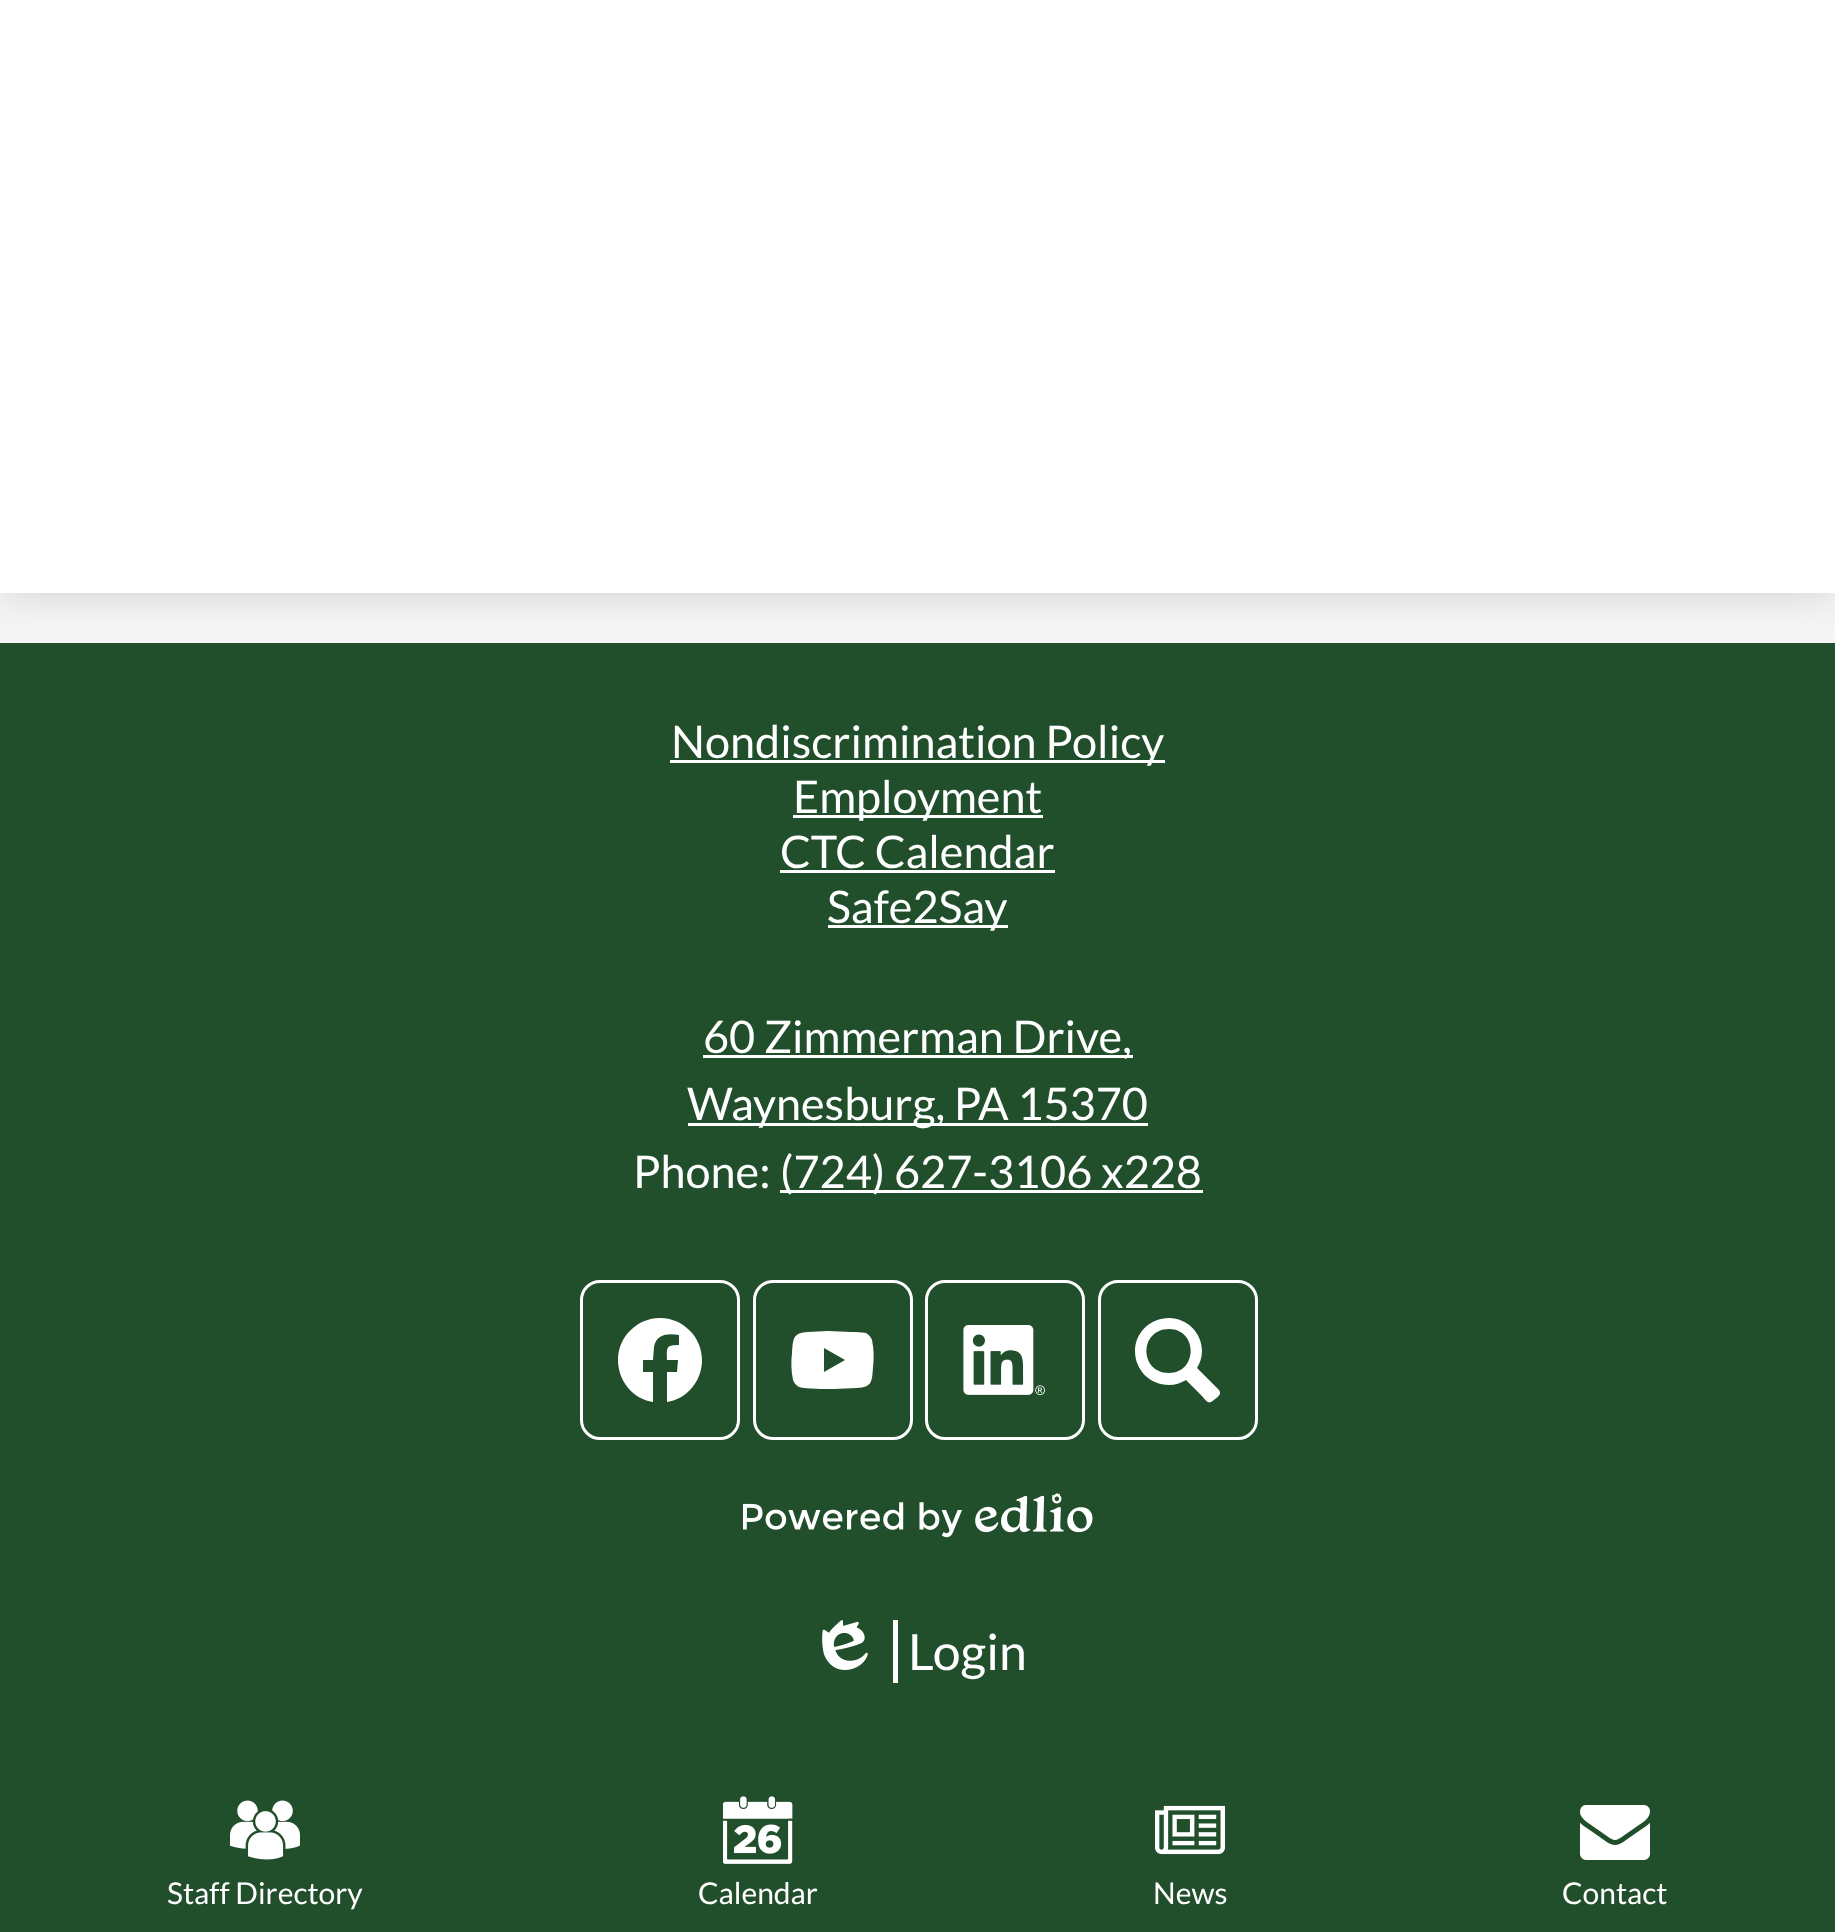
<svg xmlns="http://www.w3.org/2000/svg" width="1835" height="1932">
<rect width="100%" height="100%" fill="#f5f5f5"/>
<rect y="643" width="1835" height="1289" fill="#214f2c"/>
<rect y="-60" width="1835" height="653" fill="#00000026" filter="blur(20px)"/>
<rect width="1835" height="593" fill="#fff"/>
<rect x="670" y="760" width="495" height="3" fill="#fff"/>
<text x="671" y="758" style="font-family:Lato;font-size:45px;fill:#fff">Nondiscrimination Policy</text>
<rect x="793" y="815" width="250" height="3" fill="#fff"/>
<text x="793" y="813" style="font-family:Lato;font-size:45px;fill:#fff">Employment</text>
<text x="780" y="868" style="font-family:Lato;font-size:45px;fill:#fff">CTC Calendar</text>
<rect x="780" y="870" width="275" height="3" fill="#fff"/>
<rect x="828" y="925" width="180" height="3" fill="#fff"/>
<text x="827" y="923" style="font-family:Lato;font-size:45px;fill:#fff">Safe2Say</text>
<rect x="703" y="1055" width="430" height="3" fill="#fff"/>
<text x="703" y="1053" style="font-family:Lato;font-size:45px;fill:#fff">60 Zimmerman Drive,</text>
<rect x="688" y="1123" width="460" height="3" fill="#fff"/>
<text x="687" y="1120" style="font-family:Lato;font-size:45px;fill:#fff">Waynesburg, PA 15370</text>
<text x="633" y="1188" style="font-family:Lato;font-size:45px;fill:#fff">Phone:</text>
<rect x="780" y="1190" width="423" height="3" fill="#fff"/>
<text x="780" y="1188" style="font-family:Lato;font-size:45px;fill:#fff">(724) 627-3106 x228</text>
<rect x="581.5" y="1281.5" width="157" height="157" rx="18.5" fill="none" stroke="#fff" stroke-width="3"/>
<path d="M702 1360c0-23-19-42-42-42c-23 0-42 19-42 42c0 21 15 39 35 42v-30h-10v-12h10l1-13c2-13 14-14 25-12v10c-14 0-12 3-12 15h11l-1 12h-10v30c20-3 35-21 35-42z" fill="#fff"/>
<rect x="754.5" y="1281.5" width="157" height="157" rx="18.5" fill="none" stroke="#fff" stroke-width="3"/>
<path d="M872 1340c-1-3-3-5-6-7c-5-1-10-1-15-1l-23-1l-20 1c-15 1-15 6-16 21c-1 8-1 18 1 27c1 3 3 5 6 7c7 2 26 2 35 2l23-1c15-1 15-6 16-21c1-8 1-18-1-27zm-48 32v-24l21 12z" fill="#fff"/>
<rect x="926.5" y="1281.5" width="157" height="157" rx="18.5" fill="none" stroke="#fff" stroke-width="3"/>
<image x="963" y="1325" width="82" height="71" href="media/1.png"/>
<rect x="1099.5" y="1281.5" width="157" height="157" rx="18.5" fill="none" stroke="#fff" stroke-width="3"/>
<path d="M1219 1390l-22-22c3-5 5-11 5-17c0-18-15-33-33-33c-19 0-34 15-34 33c0 19 15 34 34 34c6 0 12-2 17-5l14 14c7 7 8 12 15 5c3-2 7-5 4-9zm-50-17c-30 0-30-44 0-44c29 0 29 44 0 44z" fill="#fff"/>
<image x="743" y="1492" width="350" height="46" href="media/2.png"/>
<rect x="893" y="1620" width="5" height="63" fill="#fff"/>
<image x="822" y="1620" width="46" height="50" href="media/3.png"/>
<text x="908" y="1670" style="font-family:Lato;font-size:50px;fill:#fff">Login</text>
<image x="230" y="1800" width="70" height="60" href="media/4.png"/>
<text x="167" y="1904" style="font-family:Lato;font-size:30px;fill:#fff">Staff Directory</text>
<image x="723" y="1796" width="70" height="68" href="media/5.png"/>
<text x="698" y="1904" style="font-family:Lato;font-size:30px;fill:#fff">Calendar</text>
<image x="1155" y="1805" width="70" height="50" href="media/6.png"/>
<text x="1153" y="1904" style="font-family:Lato;font-size:30px;fill:#fff">News</text>
<image x="1580" y="1805" width="70" height="55" href="media/7.png"/>
<text x="1562" y="1904" style="font-family:Lato;font-size:30px;fill:#fff">Contact</text>
</svg>
